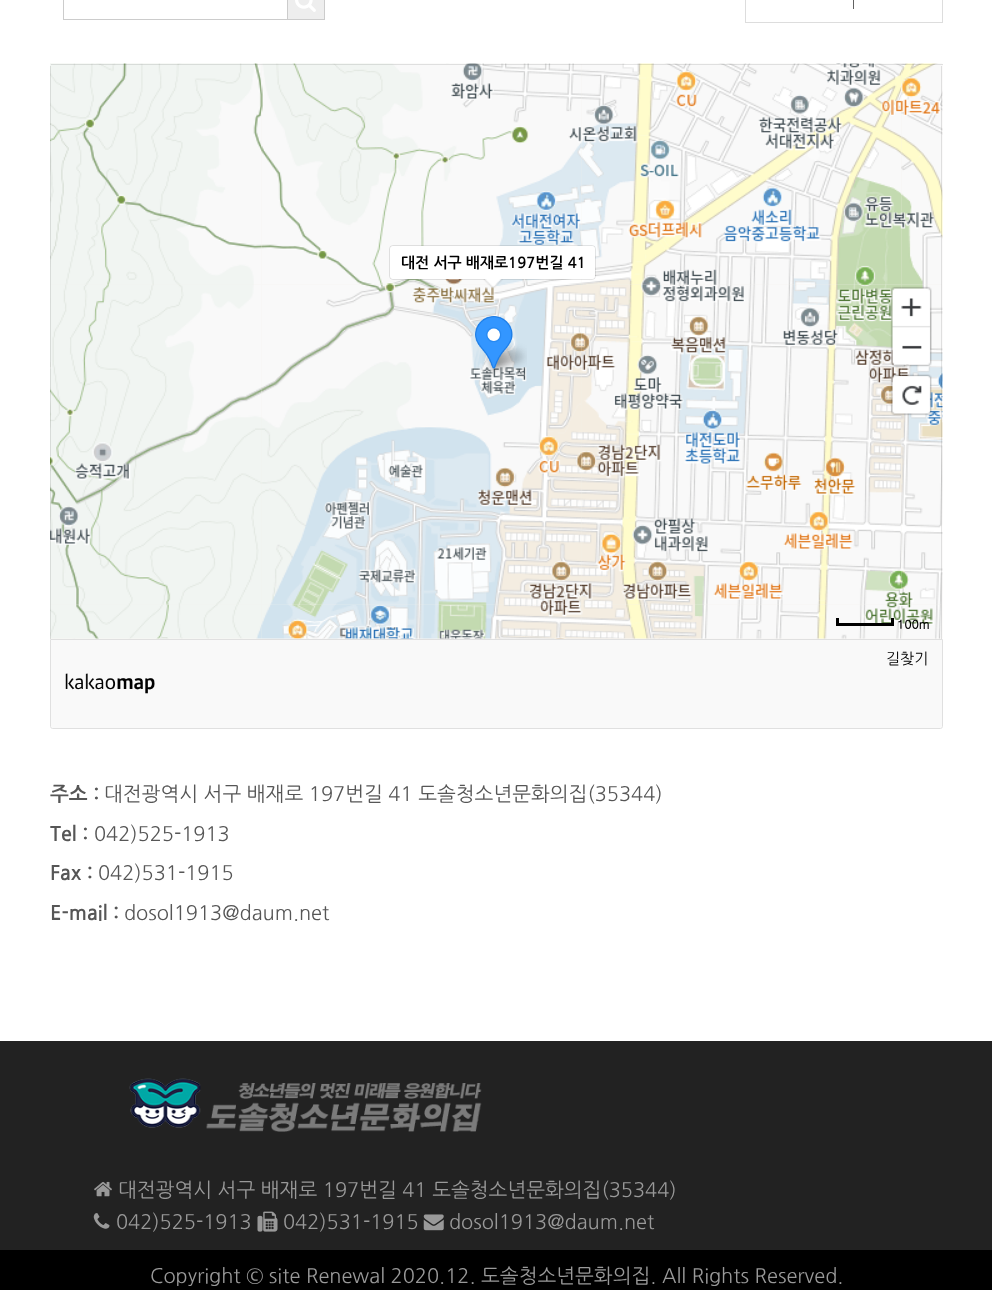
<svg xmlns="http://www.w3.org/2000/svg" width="992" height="1290">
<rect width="100%" height="100%" fill="#fff"/>
<rect x="63.5" y="-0.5" width="224" height="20" fill="none" stroke="#ccc"/>
<rect x="288" width="36" height="19" fill="#eee"/>
<rect x="324" width="1" height="20" fill="#ccc"/>
<rect x="288" y="19" width="37" height="1" fill="#ccc"/>
<image x="295" y="0" width="21" height="12" href="media/1.png"/>
<rect x="745.5" y="-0.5" width="197" height="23" fill="none" stroke="#ddd"/>
<rect x="853" width="1" height="9" fill="#616161"/>
<image x="50" y="63" width="893" height="576" href="media/2.png"/>
<image x="50" y="604" width="212" height="35" href="media/11.png"/>
<image x="261" y="604" width="321" height="35" href="media/12.png"/>
<image x="50" y="284" width="212" height="321" href="media/7.png"/>
<image x="581" y="604" width="321" height="35" href="media/13.png"/>
<image x="261" y="284" width="321" height="321" href="media/8.png"/>
<image x="50" y="63" width="212" height="222" href="media/3.png"/>
<image x="901" y="604" width="41" height="35" href="media/14.png"/>
<image x="581" y="284" width="321" height="321" href="media/9.png"/>
<image x="261" y="63" width="321" height="222" href="media/4.png"/>
<image x="901" y="284" width="42" height="321" href="media/10.png"/>
<image x="581" y="63" width="321" height="222" href="media/5.png"/>
<image x="901" y="63" width="42" height="222" href="media/6.png"/>
<rect x="51" y="64" width="892" height="1" fill="#0000001a"/>
<rect x="50" y="66" width="1" height="573" fill="#0000001a"/>
<rect x="389.5" y="245.5" width="206" height="34" rx="3.5" fill="none" stroke="#0000001a"/>
<rect x="390" y="246" width="205" height="33" rx="4" fill="#fff"/>
<text x="401" y="268" style="font-family:NanumGothic;font-size:15px;font-weight:bold;fill:#000">대전 서구 배재로197번길 41</text>
<image x="483" y="279" width="20" height="10" href="media/15.png"/>
<image x="475" y="316" width="52" height="58" href="media/16.png"/>
<rect x="891" y="618" width="3" height="7" fill="#000"/>
<rect x="836" y="623" width="58" height="3" fill="#000"/>
<rect x="836" y="618" width="3" height="7" fill="#000"/>
<text x="897" y="629" style="font-family:Dotum;font-size:12.5px;font-weight:bold;fill:#000">100m</text>
<rect x="941" y="66" width="1" height="573" fill="#0000001a"/>
<image x="890" y="286" width="42" height="130" href="media/17.png"/>
<image x="901" y="298" width="21" height="19" href="media/18.png"/>
<image x="902" y="345" width="20" height="4" href="media/19.png"/>
<image x="902" y="385" width="20" height="20" href="media/20.png"/>
<path d="M50.5 639.5h892v87c0 1-1 2-2 2h-888c-1 0-2-1-2-2z" fill="#f9f9f9" stroke="#e0e0e0"/>
<text x="886" y="664" style="font-family:NanumGothic;font-size:15px;fill:#000">길찾기</text>
<image x="65" y="673" width="90" height="21" href="media/21.png"/>
<text x="50" y="801" style="font-family:NanumGothic;font-size:20px;font-weight:bold;fill:#565656">주소 :</text>
<text x="104" y="801" style="font-family:NanumGothic;font-size:20px;fill:#565656">대전광역시 서구 배재로 197번길 41 도솔청소년문화의집(35344)</text>
<text x="50" y="841" style="font-family:NanumGothic;font-size:20px;font-weight:bold;fill:#565656">Tel :</text>
<text x="94" y="841" style="font-family:NanumGothic;font-size:20px;fill:#565656">042)525-1913</text>
<text x="50" y="880" style="font-family:NanumGothic;font-size:20px;font-weight:bold;fill:#565656">Fax :</text>
<text x="98" y="880" style="font-family:NanumGothic;font-size:20px;fill:#565656">042)531-1915</text>
<text x="50" y="920" style="font-family:NanumGothic;font-size:20px;font-weight:bold;fill:#565656">E-mail :</text>
<text x="124" y="920" style="font-family:NanumGothic;font-size:20px;fill:#565656">dosol1913@daum.net</text>
<rect y="1041" width="992" height="209" fill="#222"/>
<image x="129" y="1078" width="353" height="54" href="media/22.png"/>
<image x="94" y="1181" width="18" height="16" href="media/23.png"/>
<text x="118" y="1197" style="font-family:NanumGothic;font-size:20px;fill:#999">대전광역시 서구 배재로 197번길 41 도솔청소년문화의집(35344)</text>
<image x="93" y="1213" width="17" height="16" href="media/24.png"/>
<text x="116" y="1229" style="font-family:NanumGothic;font-size:20px;fill:#999">042)525-1913</text>
<image x="257" y="1211" width="21" height="21" href="media/25.png"/>
<text x="283" y="1229" style="font-family:NanumGothic;font-size:20px;fill:#999">042)531-1915</text>
<image x="423" y="1214" width="21" height="17" href="media/26.png"/>
<text x="449" y="1229" style="font-family:NanumGothic;font-size:20px;fill:#999">dosol1913@daum.net</text>
<rect y="1250" width="992" height="40" fill="#000"/>
<text x="150" y="1283" style="font-family:NanumGothic;font-size:20px;fill:#999">Copyright © site Renewal 2020.12. 도솔청소년문화의집. All Rights Reserved.</text>
</svg>
